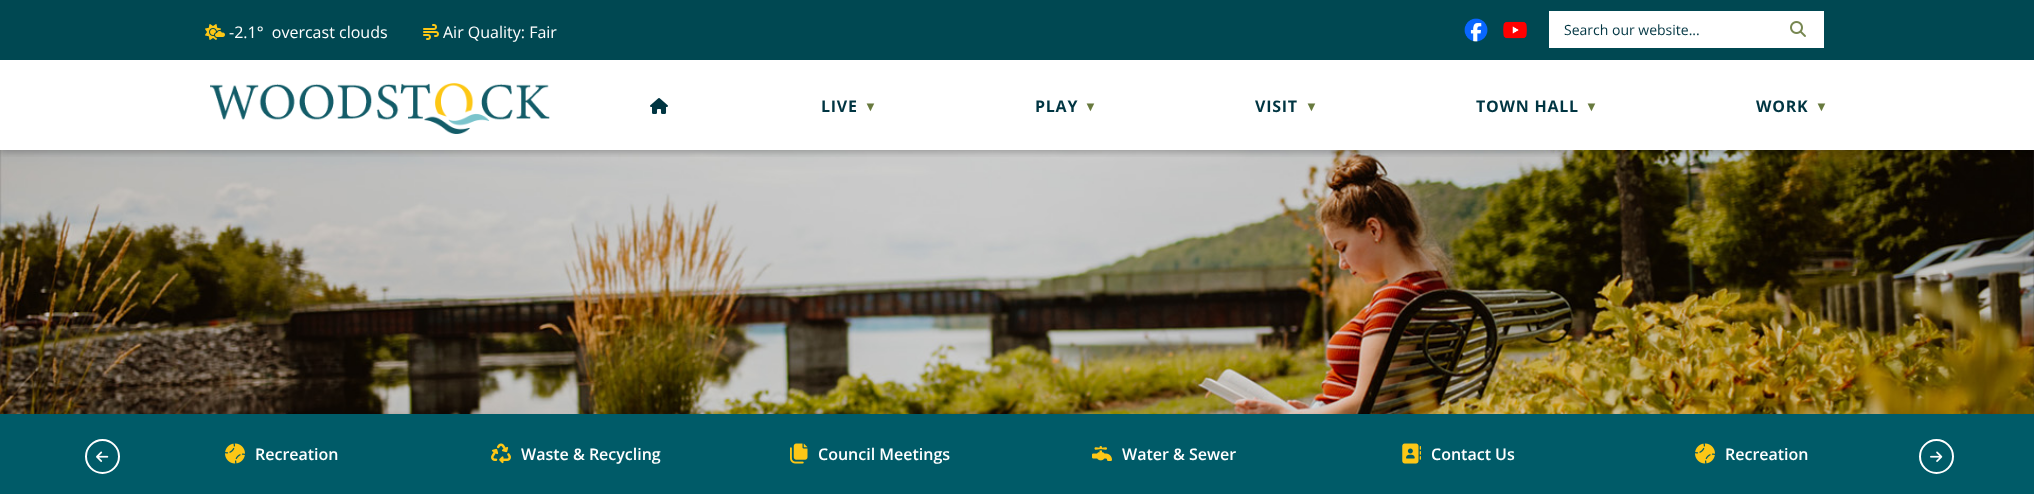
<svg xmlns="http://www.w3.org/2000/svg" width="2034" height="494">
<defs>
<clipPath id="clip1"><rect x="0" y="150" width="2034" height="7"/></clipPath>
</defs>
<rect width="100%" height="100%" fill="#fff"/>
<image x="0" y="150" width="2034" height="264" href="media/8.png"/>
<g clip-path="url(#clip1)">
<rect y="62" width="2034" height="90" fill="#00000040" filter="blur(3.5px)"/>
</g>
<rect width="2034" height="60" fill="#004852"/>
<image x="205" y="24" width="20" height="16" href="media/1.png"/>
<text x="229" y="38" style="font-family:Open Sans;font-size:16px;fill:#fff" xml:space="preserve">-2.1°  overcast clouds</text>
<image x="423" y="24" width="16" height="16" href="media/2.png"/>
<text x="443" y="38" style="font-family:Open Sans;font-size:16px;fill:#fff">Air Quality: Fair</text>
<image x="1464" y="18" width="24" height="24" href="media/3.png"/>
<image x="1503" y="21" width="24" height="18" href="media/4.png"/>
<rect x="1549" y="11" width="275" height="37" fill="#fff"/>
<text x="1564" y="35" style="font-family:Open Sans;font-size:14px;fill:#003542">Search our website...</text>
<image x="1790" y="21" width="16" height="16" href="media/5.png"/>
<image x="210" y="83" width="340" height="51" href="media/6.png"/>
<image x="650" y="98" width="18" height="16" href="media/7.png"/>
<text x="821" y="112" style="font-family:Open Sans;font-size:16px;font-weight:bold;letter-spacing:0.75px;fill:#003542">LIVE</text>
<text x="864" y="111" style="font-family:Liberation Sans;font-size:13px;fill:#687a3e">▼</text>
<text x="1035" y="112" style="font-family:Open Sans;font-size:16px;font-weight:bold;letter-spacing:0.75px;fill:#003542">PLAY</text>
<text x="1084" y="111" style="font-family:Liberation Sans;font-size:13px;fill:#687a3e">▼</text>
<text x="1255" y="112" style="font-family:Open Sans;font-size:16px;font-weight:bold;letter-spacing:0.75px;fill:#003542">VISIT</text>
<text x="1305" y="111" style="font-family:Liberation Sans;font-size:13px;fill:#687a3e">▼</text>
<text x="1476" y="112" style="font-family:Open Sans;font-size:16px;font-weight:bold;letter-spacing:0.75px;fill:#003542">TOWN HALL</text>
<text x="1585" y="111" style="font-family:Liberation Sans;font-size:13px;fill:#687a3e">▼</text>
<text x="1756" y="112" style="font-family:Open Sans;font-size:16px;font-weight:bold;letter-spacing:0.75px;fill:#003542">WORK</text>
<text x="1815" y="111" style="font-family:Liberation Sans;font-size:13px;fill:#687a3e">▼</text>
<rect y="414" width="2034" height="80" fill="#005b68"/>
<circle cx="102.5" cy="456.5" r="16.5" fill="none" stroke="#fff" stroke-width="2"/>
<image x="96" y="451" width="13" height="11" href="media/9.png"/>
<circle cx="1936.5" cy="456.5" r="16.5" fill="none" stroke="#fff" stroke-width="2"/>
<image x="1930" y="451" width="13" height="11" href="media/10.png"/>
<image x="225" y="443" width="20" height="21" href="media/11.png"/>
<text x="255" y="460" style="font-family:Open Sans;font-size:16px;font-weight:600;fill:#fff">Recreation</text>
<image x="491" y="443" width="20" height="21" href="media/12.png"/>
<text x="521" y="460" style="font-family:Open Sans;font-size:16px;font-weight:600;fill:#fff">Waste &amp; Recycling</text>
<image x="790" y="443" width="18" height="21" href="media/13.png"/>
<text x="818" y="460" style="font-family:Open Sans;font-size:16px;font-weight:600;fill:#fff">Council Meetings</text>
<image x="1092" y="446" width="20" height="15" href="media/14.png"/>
<text x="1122" y="460" style="font-family:Open Sans;font-size:16px;font-weight:600;fill:#fff">Water &amp; Sewer</text>
<image x="1402" y="443" width="19" height="21" href="media/15.png"/>
<text x="1431" y="460" style="font-family:Open Sans;font-size:16px;font-weight:600;fill:#fff">Contact Us</text>
<image x="1695" y="443" width="20" height="21" href="media/11.png"/>
<text x="1725" y="460" style="font-family:Open Sans;font-size:16px;font-weight:600;fill:#fff">Recreation</text>
</svg>
